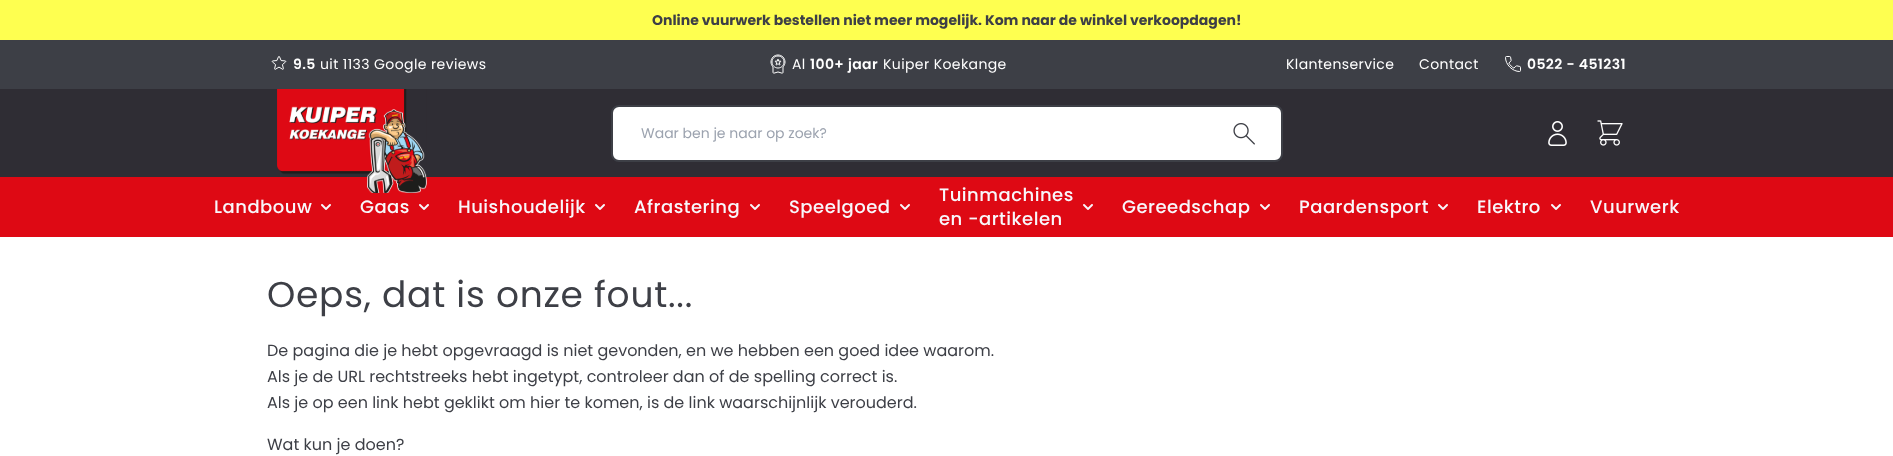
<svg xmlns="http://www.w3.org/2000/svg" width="1893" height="456">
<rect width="100%" height="100%" fill="#fff"/>
<rect width="1893" height="40" fill="#feff50"/>
<text x="652" y="25" style="font-family:Poppins;font-size:14px;font-weight:bold;fill:#3d3f46">Online vuurwerk bestellen niet meer mogelijk. Kom naar de winkel verkoopdagen!</text>
<rect y="40" width="1893" height="49" fill="#3d3f46"/>
<image x="271" y="56" width="16" height="14" href="media/1.png"/>
<text x="293" y="69" style="font-family:Poppins;font-size:14px;font-weight:600;letter-spacing:0.4px;fill:#fff">9.5</text>
<text x="320" y="69" style="font-family:Poppins;font-size:14px;letter-spacing:0.4px;fill:#fff">uit 1133 Google reviews</text>
<image x="770" y="54" width="16" height="20" href="media/2.png"/>
<text x="792" y="69" style="font-family:Poppins;font-size:14px;letter-spacing:0.4px;fill:#fff">Al</text>
<text x="810" y="69" style="font-family:Poppins;font-size:14px;font-weight:600;letter-spacing:0.4px;fill:#fff">100+ jaar</text>
<text x="883" y="69" style="font-family:Poppins;font-size:14px;letter-spacing:0.4px;fill:#fff">Kuiper Koekange</text>
<text x="1286" y="69" style="font-family:Poppins;font-size:14px;letter-spacing:0.4px;fill:#fff">Klantenservice</text>
<text x="1419" y="69" style="font-family:Poppins;font-size:14px;letter-spacing:0.4px;fill:#fff">Contact</text>
<image x="1505" y="56" width="16" height="16" href="media/3.png"/>
<text x="1527" y="69" style="font-family:Poppins;font-size:14px;font-weight:600;letter-spacing:0.4px;fill:#fff">0522 - 451231</text>
<rect y="89" width="1893" height="88" fill="#2f2d34"/>
<rect y="177" width="1893" height="60" fill="#de0914"/>
<image x="277" y="89" width="150" height="104" href="media/4.png"/>
<rect x="612" y="106" width="670" height="55" rx="7" fill="#fff" stroke="#3d3f46" stroke-width="2"/>
<text x="641" y="138" style="font-family:Poppins;font-size:14px;fill:#9ca3af">Waar ben je naar op zoek?</text>
<image x="1233" y="123" width="22" height="22" href="media/5.png"/>
<image x="1548" y="121" width="19" height="25" href="media/6.png"/>
<image x="1597" y="120" width="26" height="26" href="media/7.png"/>
<text x="214" y="213" style="font-family:Poppins;font-size:18px;font-weight:500;letter-spacing:0.5px;fill:#f8f7fb">Landbouw</text>
<image x="321" y="204" width="10" height="6" href="media/8.png"/>
<text x="360" y="213" style="font-family:Poppins;font-size:18px;font-weight:500;letter-spacing:0.5px;fill:#f8f7fb">Gaas</text>
<image x="419" y="204" width="10" height="6" href="media/8.png"/>
<text x="458" y="213" style="font-family:Poppins;font-size:18px;font-weight:500;letter-spacing:0.5px;fill:#f8f7fb">Huishoudelijk</text>
<image x="595" y="204" width="10" height="6" href="media/8.png"/>
<text x="634" y="213" style="font-family:Poppins;font-size:18px;font-weight:500;letter-spacing:0.5px;fill:#f8f7fb">Afrastering</text>
<image x="750" y="204" width="10" height="6" href="media/8.png"/>
<text x="789" y="213" style="font-family:Poppins;font-size:18px;font-weight:500;letter-spacing:0.5px;fill:#f8f7fb">Speelgoed</text>
<image x="900" y="204" width="10" height="6" href="media/8.png"/>
<text x="939" y="201" style="font-family:Poppins;font-size:18px;font-weight:500;letter-spacing:0.5px;fill:#f8f7fb">Tuinmachines</text>
<text x="939" y="225" style="font-family:Poppins;font-size:18px;font-weight:500;letter-spacing:0.5px;fill:#f8f7fb">en -artikelen</text>
<image x="1083" y="204" width="10" height="6" href="media/8.png"/>
<text x="1122" y="213" style="font-family:Poppins;font-size:18px;font-weight:500;letter-spacing:0.5px;fill:#f8f7fb">Gereedschap</text>
<image x="1260" y="204" width="10" height="6" href="media/8.png"/>
<text x="1299" y="213" style="font-family:Poppins;font-size:18px;font-weight:500;letter-spacing:0.5px;fill:#f8f7fb">Paardensport</text>
<image x="1438" y="204" width="10" height="6" href="media/8.png"/>
<text x="1477" y="213" style="font-family:Poppins;font-size:18px;font-weight:500;letter-spacing:0.5px;fill:#f8f7fb">Elektro</text>
<image x="1551" y="204" width="10" height="6" href="media/8.png"/>
<text x="1590" y="213" style="font-family:Poppins;font-size:18px;font-weight:500;letter-spacing:0.5px;fill:#f8f7fb">Vuurwerk</text>
<text x="267" y="307" style="font-family:Poppins;font-size:36px;letter-spacing:0.75px;fill:#3d3f46">Oeps, dat is onze fout...</text>
<text x="267" y="356" style="font-family:Poppins;font-size:16px;fill:#3d3f46">De pagina die je hebt opgevraagd is niet gevonden, en we hebben een goed idee waarom.</text>
<text x="267" y="382" style="font-family:Poppins;font-size:16px;fill:#3d3f46">Als je de URL rechtstreeks hebt ingetypt, controleer dan of de spelling correct is.</text>
<text x="267" y="408" style="font-family:Poppins;font-size:16px;fill:#3d3f46">Als je op een link hebt geklikt om hier te komen, is de link waarschijnlijk verouderd.</text>
<text x="267" y="450" style="font-family:Poppins;font-size:16px;fill:#3d3f46">Wat kun je doen?</text>
</svg>
